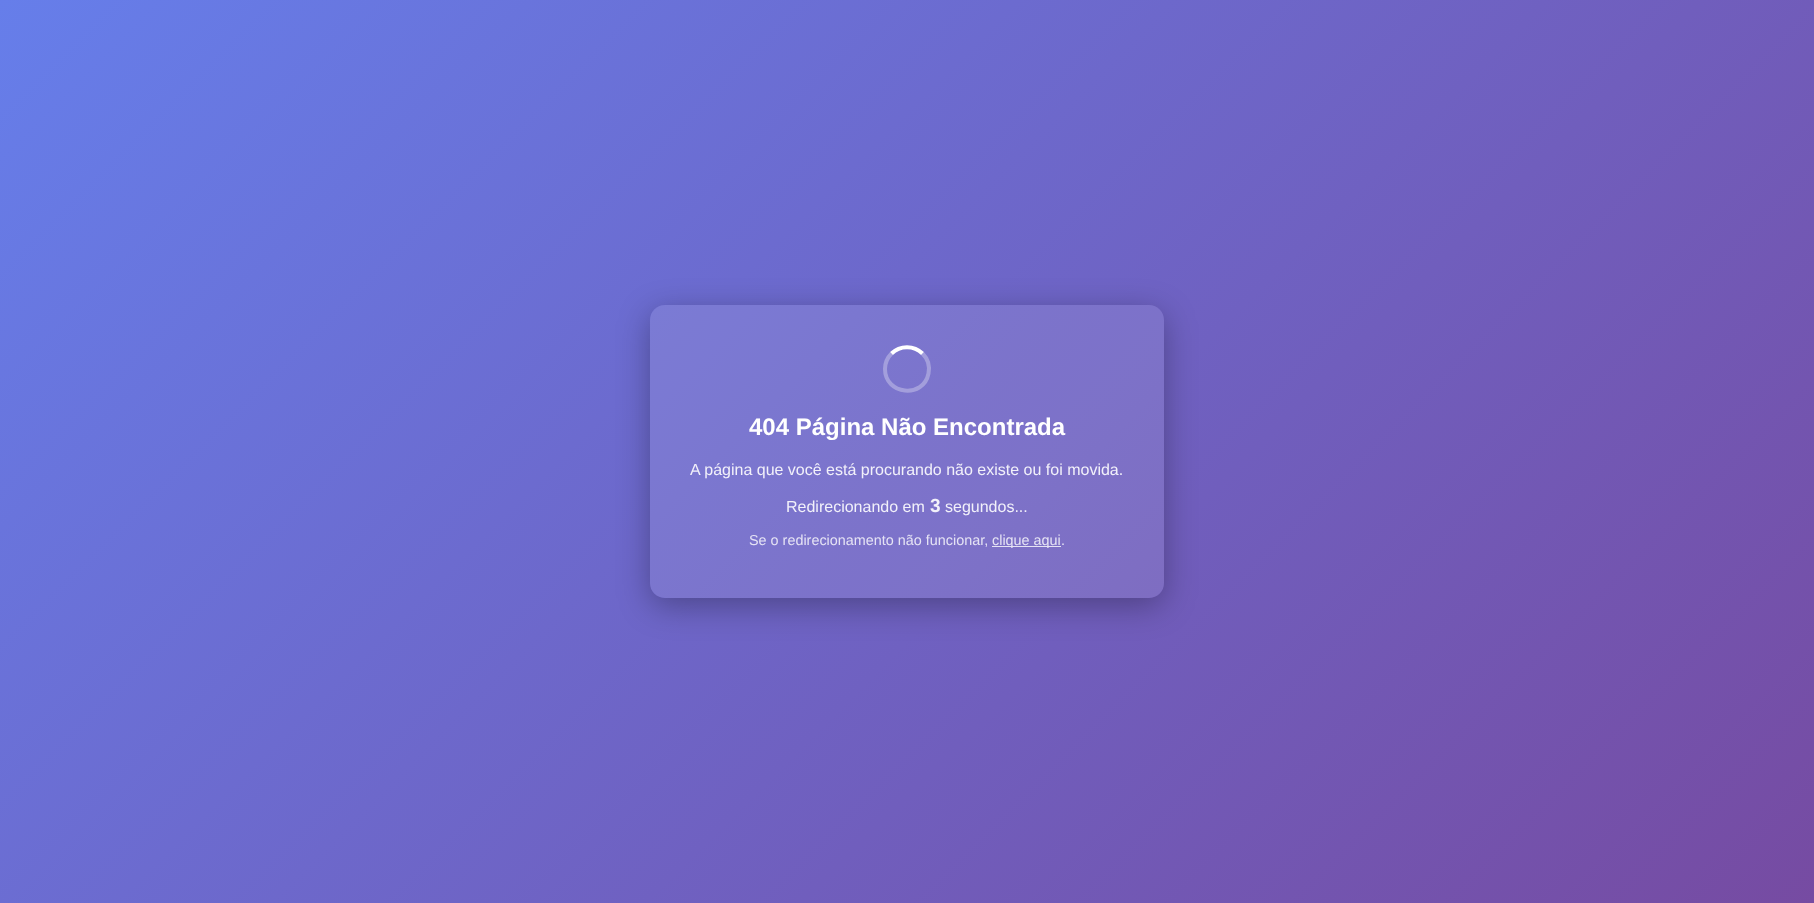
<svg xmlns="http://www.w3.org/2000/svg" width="1814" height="903">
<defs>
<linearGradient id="g1" gradientUnits="userSpaceOnUse" x1="228" y1="-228" x2="1586" y2="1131"><stop offset="0" stop-color="#667eea"/><stop offset="1" stop-color="#764ba2"/></linearGradient>
<clipPath id="clip1"><path d="M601 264h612v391h-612zm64 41h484c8.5 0 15 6.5 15 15v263c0 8.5-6.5 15-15 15h-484c-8.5 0-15-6.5-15-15v-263c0-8.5 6.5-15 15-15z" clip-rule="evenodd"/></clipPath>
</defs>
<rect width="100%" height="100%" fill="#fff"/>
<rect width="1814" height="903" fill="url(#g1)"/>
<g clip-path="url(#clip1)">
<rect x="650" y="313" width="514" height="293" rx="15" fill="#0000004d" filter="blur(16px)"/>
</g>
<rect x="650" y="305" width="514" height="293" rx="15" fill="#ffffff1a"/>
<path d="M891.5 353.5c8.5-8.5 22.5-8.5 31 0" fill="none" stroke="#fff" stroke-width="4"/>
<path d="M922.5 353.5c5 5 7.5 12.5 6 20c-5 25.5-43.5 21.5-43.5-4.5c0-6 2.5-11.5 6.5-15.5" fill="none" stroke="#ffffff4d" stroke-width="4"/>
<text x="749" y="435" style="font-family:Liberation Sans;font-size:24px;font-weight:bold;fill:#fff">404 Página Não Encontrada</text>
<text x="690" y="475" style="font-family:Liberation Sans;font-size:16px;fill:#f2f1fa">A página que você está procurando não existe ou foi movida.</text>
<text x="786" y="512" style="font-family:Liberation Sans;font-size:16px;fill:#f2f1fa">Redirecionando em</text>
<text x="930" y="512" style="font-family:Liberation Sans;font-size:19px;font-weight:bold;fill:#f2f1fa">3</text>
<text x="945" y="512" style="font-family:Liberation Sans;font-size:16px;fill:#f2f1fa">segundos...</text>
<text x="749" y="545" style="font-family:Liberation Sans;font-size:14.4px;fill:#e5e3f4">Se o redirecionamento não funcionar,</text>
<rect x="992" y="546" width="69" height="1" fill="#e5e2f4"/>
<text x="992" y="545" style="font-family:Liberation Sans;font-size:14.4px;fill:#e5e3f4">clique aqui</text>
<text x="1061" y="545" style="font-family:Liberation Sans;font-size:14.4px;fill:#e5e3f4">.</text>
</svg>
